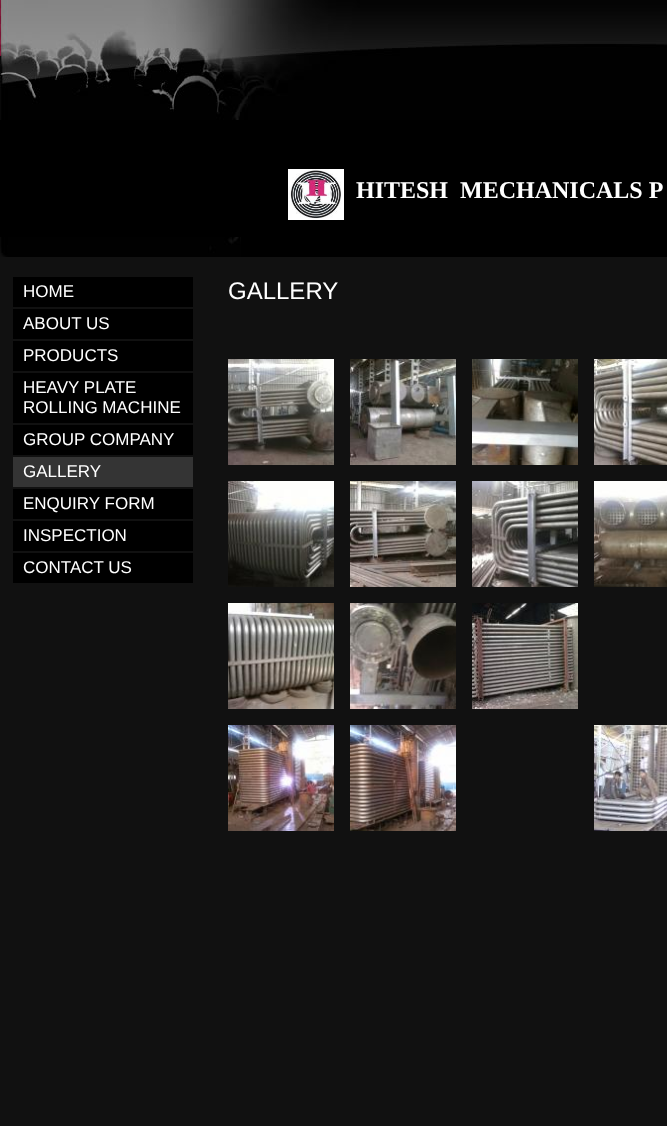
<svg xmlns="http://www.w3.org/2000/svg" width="667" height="1126">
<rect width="100%" height="100%" fill="#111"/>
<rect y="120" width="667" height="137" fill="#000"/>
<image x="0" y="0" width="667" height="120" href="media/1.png"/>
<image x="288" y="169" width="56" height="51" href="media/2.png"/>
<text x="356" y="198" style="font-family:Liberation Serif;font-size:24px;font-weight:bold;fill:#fff">HITESH</text>
<text x="460" y="198" style="font-family:Liberation Serif;font-size:24px;font-weight:bold;fill:#fff">MECHANICALS P</text>
<image x="0" y="237" width="241" height="20" href="media/3.png"/>
<rect x="13" y="277" width="180" height="30" fill="#000"/>
<text x="23" y="297" style="font-family:Liberation Sans;font-size:17px;fill:#fff">HOME</text>
<rect x="13" y="309" width="180" height="30" fill="#000"/>
<text x="23" y="329" style="font-family:Liberation Sans;font-size:17px;fill:#fff">ABOUT US</text>
<rect x="13" y="341" width="180" height="30" fill="#000"/>
<text x="23" y="361" style="font-family:Liberation Sans;font-size:17px;fill:#fff">PRODUCTS</text>
<rect x="13" y="373" width="180" height="50" fill="#000"/>
<text x="23" y="393" style="font-family:Liberation Sans;font-size:17px;fill:#fff">HEAVY PLATE</text>
<text x="23" y="413" style="font-family:Liberation Sans;font-size:17px;fill:#fff">ROLLING MACHINE</text>
<rect x="13" y="425" width="180" height="30" fill="#000"/>
<text x="23" y="445" style="font-family:Liberation Sans;font-size:17px;fill:#fff">GROUP COMPANY</text>
<rect x="13" y="457" width="180" height="30" fill="#343434"/>
<text x="23" y="477" style="font-family:Liberation Sans;font-size:17px;fill:#fff">GALLERY</text>
<rect x="13" y="489" width="180" height="30" fill="#000"/>
<text x="23" y="509" style="font-family:Liberation Sans;font-size:17px;fill:#fff">ENQUIRY FORM</text>
<rect x="13" y="521" width="180" height="30" fill="#000"/>
<text x="23" y="541" style="font-family:Liberation Sans;font-size:17px;fill:#fff">INSPECTION</text>
<rect x="13" y="553" width="180" height="30" fill="#000"/>
<text x="23" y="573" style="font-family:Liberation Sans;font-size:17px;fill:#fff">CONTACT US</text>
<text x="228" y="299" style="font-family:Liberation Sans;font-size:24px;fill:#fff">GALLERY</text>
<image x="228" y="359" width="106" height="106" href="media/4.png"/>
<image x="350" y="359" width="106" height="106" href="media/5.png"/>
<image x="472" y="359" width="106" height="106" href="media/6.png"/>
<image x="594" y="359" width="73" height="106" href="media/7.png"/>
<image x="228" y="481" width="106" height="106" href="media/8.png"/>
<image x="350" y="481" width="106" height="106" href="media/9.png"/>
<image x="472" y="481" width="106" height="106" href="media/10.png"/>
<image x="594" y="481" width="73" height="106" href="media/11.png"/>
<image x="228" y="603" width="106" height="106" href="media/12.png"/>
<image x="350" y="603" width="106" height="106" href="media/13.png"/>
<image x="472" y="603" width="106" height="106" href="media/14.png"/>
<image x="228" y="725" width="106" height="106" href="media/15.png"/>
<image x="350" y="725" width="106" height="106" href="media/16.png"/>
<image x="594" y="725" width="73" height="106" href="media/17.png"/>
</svg>
